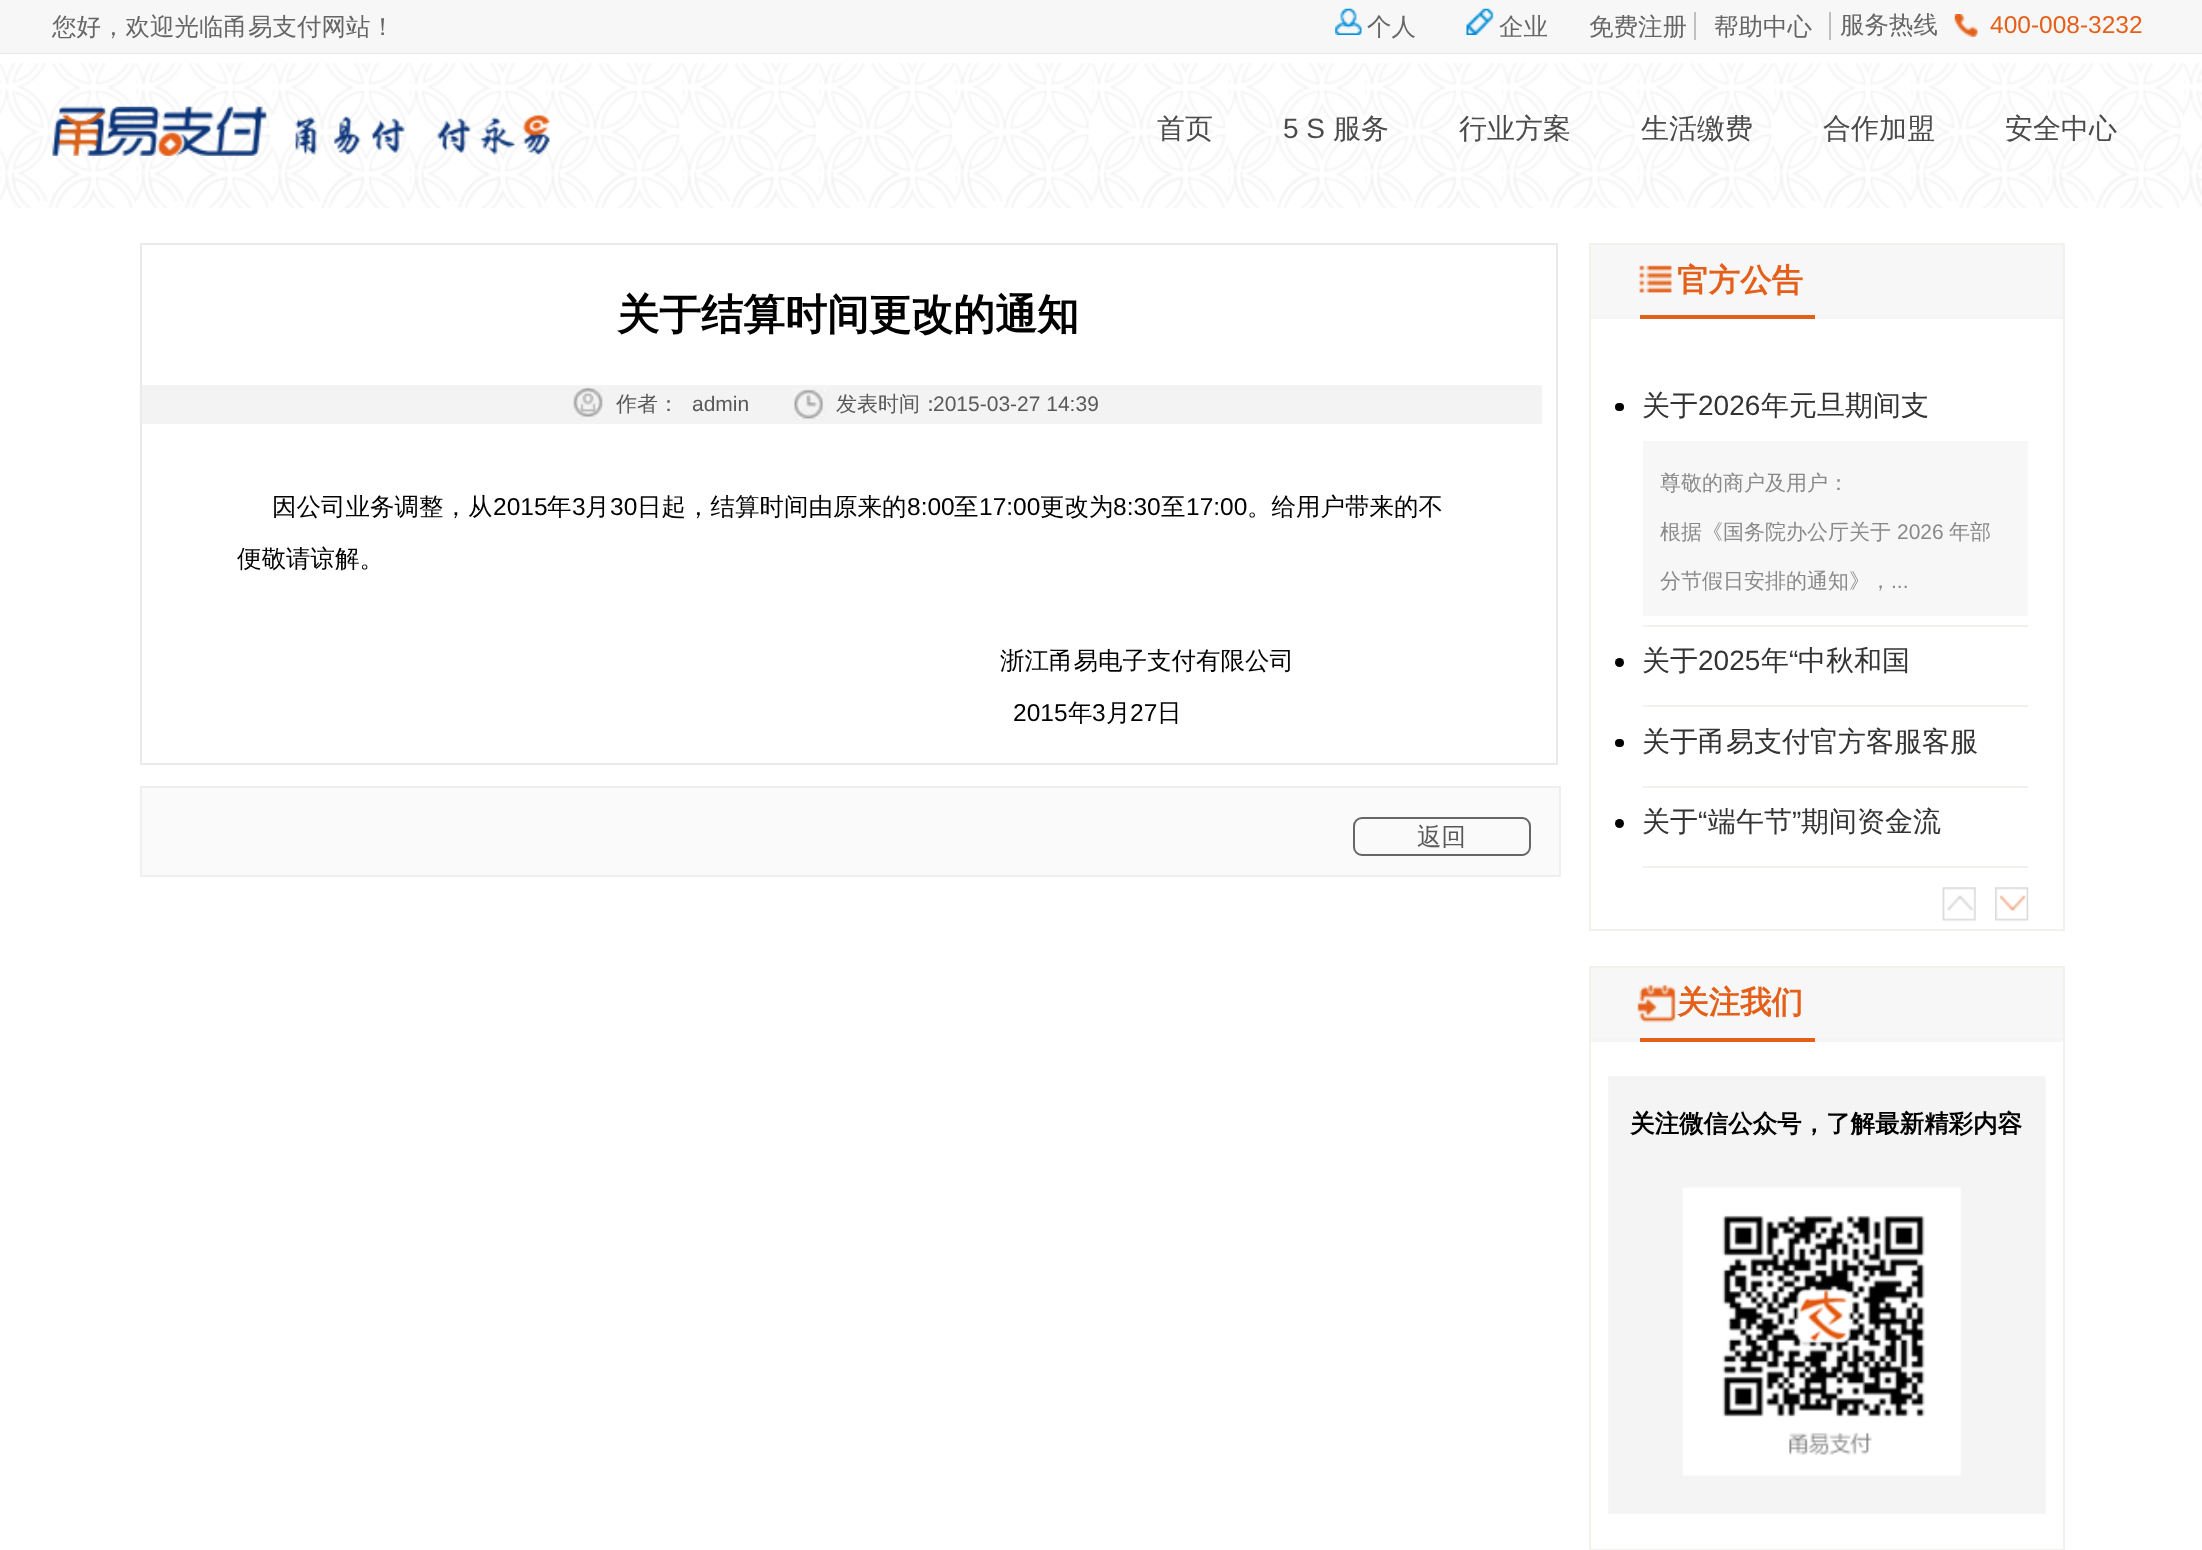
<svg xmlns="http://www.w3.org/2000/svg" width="2202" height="1550">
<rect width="100%" height="100%" fill="#fff"/>
<rect width="2202" height="53" fill="#f8f7f7"/>
<rect y="53" width="2202" height="1" fill="#e9e8e8"/>
<text x="52" y="35" style="font-family:WenQuanYi Zen Hei;font-size:24.5px;font-weight:500;fill:#666">您好，欢迎光临甬易支付网站！</text>
<image x="1335" y="8" width="27" height="27" href="media/1.png"/>
<text x="1367" y="35" style="font-family:WenQuanYi Zen Hei;font-size:24.5px;font-weight:500;fill:#666">个人</text>
<image x="1466" y="8" width="28" height="27" href="media/2.png"/>
<text x="1499" y="35" style="font-family:WenQuanYi Zen Hei;font-size:24.5px;font-weight:500;fill:#666">企业</text>
<text x="1589" y="35" style="font-family:WenQuanYi Zen Hei;font-size:24.5px;font-weight:500;fill:#666">免费注册</text>
<text x="1714" y="35" style="font-family:WenQuanYi Zen Hei;font-size:24.5px;font-weight:500;fill:#666">帮助中心</text>
<rect x="1829" y="12" width="2" height="28" fill="#c0c0c0"/>
<rect x="1694" y="12" width="2" height="28" fill="#c0c0c0"/>
<text x="1840" y="33" style="font-family:WenQuanYi Zen Hei;font-size:24.5px;font-weight:500;fill:#666">服务热线</text>
<image x="1954" y="14" width="24" height="23" href="media/3.png"/>
<text x="1990" y="33" style="font-family:Liberation Sans;font-size:24.5px;fill:#e4601a">400-008-3232</text>
<image x="0" y="63" width="2202" height="145" href="media/4.png"/>
<image x="52" y="106" width="498" height="50" href="media/5.png"/>
<text x="1157" y="138" style="font-family:WenQuanYi Zen Hei;font-size:28px;font-weight:500;fill:#4b4b4b">首页</text>
<text x="1283" y="138" style="font-family:Liberation Sans;font-size:28px;fill:#4b4b4b">5 S</text>
<text x="1333" y="138" style="font-family:WenQuanYi Zen Hei;font-size:28px;font-weight:500;fill:#4b4b4b">服务</text>
<text x="1459" y="138" style="font-family:WenQuanYi Zen Hei;font-size:28px;font-weight:500;fill:#4b4b4b">行业方案</text>
<text x="1641" y="138" style="font-family:WenQuanYi Zen Hei;font-size:28px;font-weight:500;fill:#4b4b4b">生活缴费</text>
<text x="1823" y="138" style="font-family:WenQuanYi Zen Hei;font-size:28px;font-weight:500;fill:#4b4b4b">合作加盟</text>
<text x="2005" y="138" style="font-family:WenQuanYi Zen Hei;font-size:28px;font-weight:500;fill:#4b4b4b">安全中心</text>
<rect x="141" y="244" width="1416" height="520" fill="none" stroke="#eaeae9" stroke-width="2"/>
<text x="617" y="329" style="font-family:WenQuanYi Zen Hei;font-size:42px;font-weight:bold;fill:#000">关于结算时间更改的通知</text>
<rect x="142" y="385" width="1400" height="39" fill="#f3f3f3"/>
<image x="573" y="387" width="30" height="30" href="media/6.png"/>
<text x="616" y="411" style="font-family:WenQuanYi Zen Hei;font-size:21px;font-weight:500;fill:#585858">作者：</text>
<text x="692" y="411" style="font-family:Liberation Sans;font-size:21px;fill:#585858">admin</text>
<image x="793" y="389" width="33" height="31" href="media/7.png"/>
<text x="836" y="411" style="font-family:WenQuanYi Zen Hei;font-size:21px;font-weight:500;fill:#585858">发表时间：</text>
<text x="933" y="411" style="font-family:Liberation Sans;font-size:21px;fill:#585858">2015-03-27 14:39</text>
<text x="272" y="515" style="font-family:WenQuanYi Zen Hei;font-size:24.5px;font-weight:500;fill:#000">因公司业务调整，从</text>
<text x="493" y="515" style="font-family:Liberation Sans;font-size:24.5px;fill:#000">2015</text>
<text x="547" y="515" style="font-family:WenQuanYi Zen Hei;font-size:24.5px;font-weight:500;fill:#000">年</text>
<text x="572" y="515" style="font-family:Liberation Sans;font-size:24.5px;fill:#000">3</text>
<text x="585" y="515" style="font-family:WenQuanYi Zen Hei;font-size:24.5px;font-weight:500;fill:#000">月</text>
<text x="610" y="515" style="font-family:Liberation Sans;font-size:24.5px;fill:#000">30</text>
<text x="637" y="515" style="font-family:WenQuanYi Zen Hei;font-size:24.5px;font-weight:500;fill:#000">日起，结算时间由原来的</text>
<text x="907" y="515" style="font-family:Liberation Sans;font-size:24.5px;fill:#000">8:00</text>
<text x="954" y="515" style="font-family:WenQuanYi Zen Hei;font-size:24.5px;font-weight:500;fill:#000">至</text>
<text x="979" y="515" style="font-family:Liberation Sans;font-size:24.5px;fill:#000">17:00</text>
<text x="1040" y="515" style="font-family:WenQuanYi Zen Hei;font-size:24.5px;font-weight:500;fill:#000">更改为</text>
<text x="1113" y="515" style="font-family:Liberation Sans;font-size:24.5px;fill:#000">8:30</text>
<text x="1161" y="515" style="font-family:WenQuanYi Zen Hei;font-size:24.5px;font-weight:500;fill:#000">至</text>
<text x="1186" y="515" style="font-family:Liberation Sans;font-size:24.5px;fill:#000">17:00</text>
<text x="1247" y="515" style="font-family:WenQuanYi Zen Hei;font-size:24.5px;font-weight:500;fill:#000">。给用户带来的不</text>
<text x="237" y="567" style="font-family:WenQuanYi Zen Hei;font-size:24.5px;font-weight:500;fill:#000">便敬请谅解。</text>
<text x="1000" y="669" style="font-family:WenQuanYi Zen Hei;font-size:24.5px;font-weight:500;fill:#000">浙江甬易电子支付有限公司</text>
<text x="1013" y="721" style="font-family:Liberation Sans;font-size:24.5px;fill:#000">2015</text>
<text x="1068" y="721" style="font-family:WenQuanYi Zen Hei;font-size:24.5px;font-weight:500;fill:#000">年</text>
<text x="1092" y="721" style="font-family:Liberation Sans;font-size:24.5px;fill:#000">3</text>
<text x="1106" y="721" style="font-family:WenQuanYi Zen Hei;font-size:24.5px;font-weight:500;fill:#000">月</text>
<text x="1130" y="721" style="font-family:Liberation Sans;font-size:24.5px;fill:#000">27</text>
<text x="1157" y="721" style="font-family:WenQuanYi Zen Hei;font-size:24.5px;font-weight:500;fill:#000">日</text>
<rect x="141" y="787" width="1419" height="89" fill="#fafafa" stroke="#efefef" stroke-width="2"/>
<rect x="1354" y="818" width="176" height="37" rx="8" fill="none" stroke="#666" stroke-width="2"/>
<text x="1417" y="845" style="font-family:WenQuanYi Zen Hei;font-size:24.5px;font-weight:500;fill:#585858">返回</text>
<rect x="1590" y="244" width="474" height="686" fill="none" stroke="#f2f2ed" stroke-width="2"/>
<rect x="1591" y="245" width="472" height="70" fill="#f7f7f7"/>
<image x="1639" y="265" width="33" height="28" href="media/8.png"/>
<rect x="1591" y="315" width="472" height="4" fill="#f5f5f5"/>
<text x="1677" y="291" style="font-family:WenQuanYi Zen Hei;font-size:31.5px;font-weight:bold;fill:#e4601a">官方公告</text>
<rect x="1640" y="315" width="175" height="4" fill="#e4601a"/>
<rect x="1643" y="625" width="385" height="2" fill="#f2f2ed"/>
<rect x="1615" y="403" width="9" height="8" rx="4" fill="#000"/>
<text x="1642" y="415" style="font-family:WenQuanYi Zen Hei;font-size:28px;font-weight:500;fill:#333">关于</text>
<text x="1698" y="415" style="font-family:Liberation Sans;font-size:28px;fill:#333">2026</text>
<text x="1761" y="415" style="font-family:WenQuanYi Zen Hei;font-size:28px;font-weight:500;fill:#333">年元旦期间支</text>
<rect x="1643" y="441" width="385" height="175" fill="#f7f7f7"/>
<text x="1660" y="490" style="font-family:WenQuanYi Zen Hei;font-size:21px;font-weight:500;fill:#898989">尊敬的商户及用户：</text>
<text x="1660" y="539" style="font-family:WenQuanYi Zen Hei;font-size:21px;font-weight:500;fill:#898989">根据《国务院办公厅关于</text>
<text x="1897" y="539" style="font-family:Liberation Sans;font-size:21px;fill:#898989">2026</text>
<text x="1949" y="539" style="font-family:WenQuanYi Zen Hei;font-size:21px;font-weight:500;fill:#898989">年部</text>
<text x="1660" y="588" style="font-family:WenQuanYi Zen Hei;font-size:21px;font-weight:500;fill:#898989">分节假日安排的通知》，</text>
<text x="1891" y="588" style="font-family:Liberation Sans;font-size:21px;fill:#898989">...</text>
<rect x="1643" y="705" width="385" height="2" fill="#f2f2ed"/>
<circle cx="1619.5" cy="662.5" r="4.5" fill="#000"/>
<text x="1642" y="670" style="font-family:WenQuanYi Zen Hei;font-size:28px;font-weight:500;fill:#333">关于</text>
<text x="1698" y="670" style="font-family:Liberation Sans;font-size:28px;fill:#333">2025</text>
<text x="1761" y="670" style="font-family:WenQuanYi Zen Hei;font-size:28px;font-weight:500;fill:#333">年</text>
<text x="1789" y="670" style="font-family:Liberation Sans;font-size:28px;fill:#333">“</text>
<text x="1798" y="670" style="font-family:WenQuanYi Zen Hei;font-size:28px;font-weight:500;fill:#333">中秋和国</text>
<rect x="1643" y="786" width="385" height="2" fill="#f2f2ed"/>
<rect x="1615" y="739" width="9" height="8" rx="4" fill="#000"/>
<text x="1642" y="751" style="font-family:WenQuanYi Zen Hei;font-size:28px;font-weight:500;fill:#333">关于甬易支付官方客服客服</text>
<rect x="1643" y="866" width="385" height="2" fill="#f2f2ed"/>
<circle cx="1619.5" cy="823.5" r="4.5" fill="#000"/>
<text x="1642" y="831" style="font-family:WenQuanYi Zen Hei;font-size:28px;font-weight:500;fill:#333">关于</text>
<text x="1698" y="831" style="font-family:Liberation Sans;font-size:28px;fill:#333">“</text>
<text x="1708" y="831" style="font-family:WenQuanYi Zen Hei;font-size:28px;font-weight:500;fill:#333">端午节</text>
<text x="1792" y="831" style="font-family:Liberation Sans;font-size:28px;fill:#333">”</text>
<text x="1801" y="831" style="font-family:WenQuanYi Zen Hei;font-size:28px;font-weight:500;fill:#333">期间资金流</text>
<image x="1942" y="887" width="34" height="34" href="media/9.png"/>
<image x="1995" y="887" width="34" height="34" href="media/10.png"/>
<rect x="1590" y="967" width="474" height="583" fill="none" stroke="#f2f2ed" stroke-width="2"/>
<rect x="1591" y="968" width="472" height="70" fill="#f7f7f7"/>
<image x="1637" y="984" width="39" height="39" href="media/11.png"/>
<rect x="1591" y="1038" width="472" height="4" fill="#f5f5f5"/>
<text x="1677" y="1013" style="font-family:WenQuanYi Zen Hei;font-size:31.5px;font-weight:bold;fill:#e4601a">关注我们</text>
<rect x="1640" y="1038" width="175" height="4" fill="#e4601a"/>
<image x="1608" y="1076" width="438" height="438" href="media/12.png"/>
<text x="1630" y="1132" style="font-family:WenQuanYi Zen Hei;font-size:24.5px;font-weight:bold;fill:#000">关注微信公众号，了解最新精彩内容</text>
</svg>
